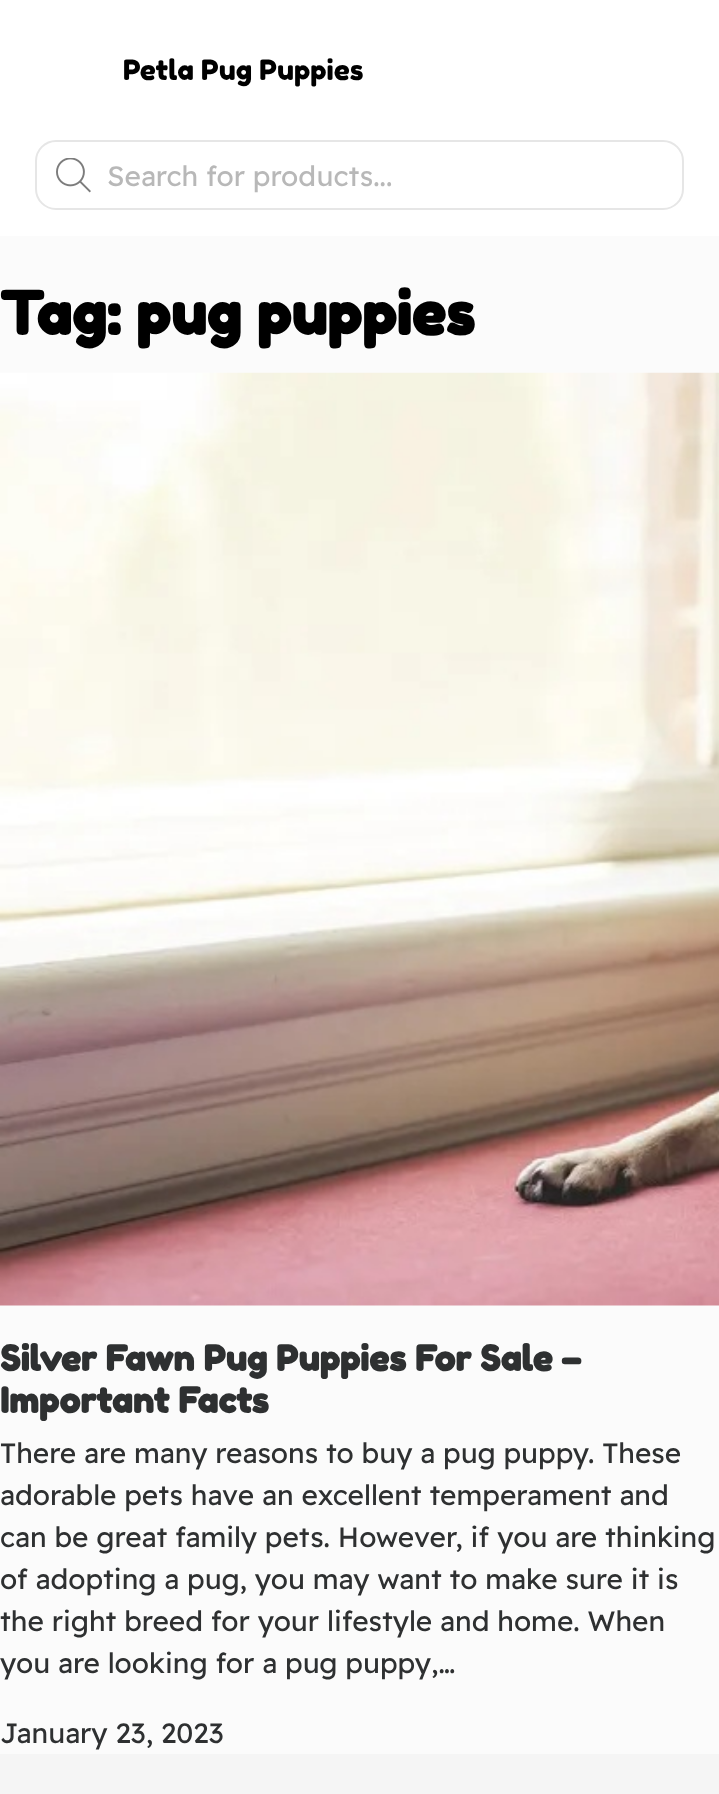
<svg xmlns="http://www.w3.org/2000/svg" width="719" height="1794">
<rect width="100%" height="100%" fill="#fbfbfb"/>
<rect width="719" height="236" fill="#fff"/>
<text x="123" y="80" style="font-family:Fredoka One;font-size:28px;fill:#000">Petla Pug Puppies</text>
<rect x="36" y="141" width="647" height="68" rx="20" fill="none" stroke="#e6e6e6" stroke-width="2"/>
<image x="56" y="158" width="35" height="35" href="media/1.png"/>
<text x="107" y="186" style="font-family:Readex Pro;font-size:28px;fill:#b8b8b8">Search for products...</text>
<text x="0" y="335" style="font-family:Fredoka One;font-size:59.5px;font-weight:bold;fill:#000">Tag: pug puppies</text>
<image x="0" y="372" width="719" height="934" href="media/2.png"/>
<text x="0" y="1371" style="font-family:Fredoka One;font-size:35px;font-weight:bold;fill:#2e3031">Silver Fawn Pug Puppies For Sale –</text>
<text x="0" y="1413" style="font-family:Fredoka One;font-size:35px;font-weight:bold;fill:#2e3031">Important Facts</text>
<text x="0" y="1463" style="font-family:Readex Pro;font-size:28px;fill:#2e3031">There are many reasons to buy a pug puppy. These</text>
<text x="0" y="1505" style="font-family:Readex Pro;font-size:28px;fill:#2e3031">adorable pets have an excellent temperament and</text>
<text x="0" y="1547" style="font-family:Readex Pro;font-size:28px;fill:#2e3031">can be great family pets. However, if you are thinking</text>
<text x="0" y="1589" style="font-family:Readex Pro;font-size:28px;fill:#2e3031">of adopting a pug, you may want to make sure it is</text>
<text x="0" y="1631" style="font-family:Readex Pro;font-size:28px;fill:#2e3031">the right breed for your lifestyle and home. When</text>
<text x="0" y="1673" style="font-family:Readex Pro;font-size:28px;fill:#2e3031">you are looking for a pug puppy,…</text>
<text x="0" y="1743" style="font-family:Readex Pro;font-size:28px;fill:#2e3031">January 23, 2023</text>
<rect y="1754" width="719" height="40" fill="#f5f5f5"/>
</svg>
